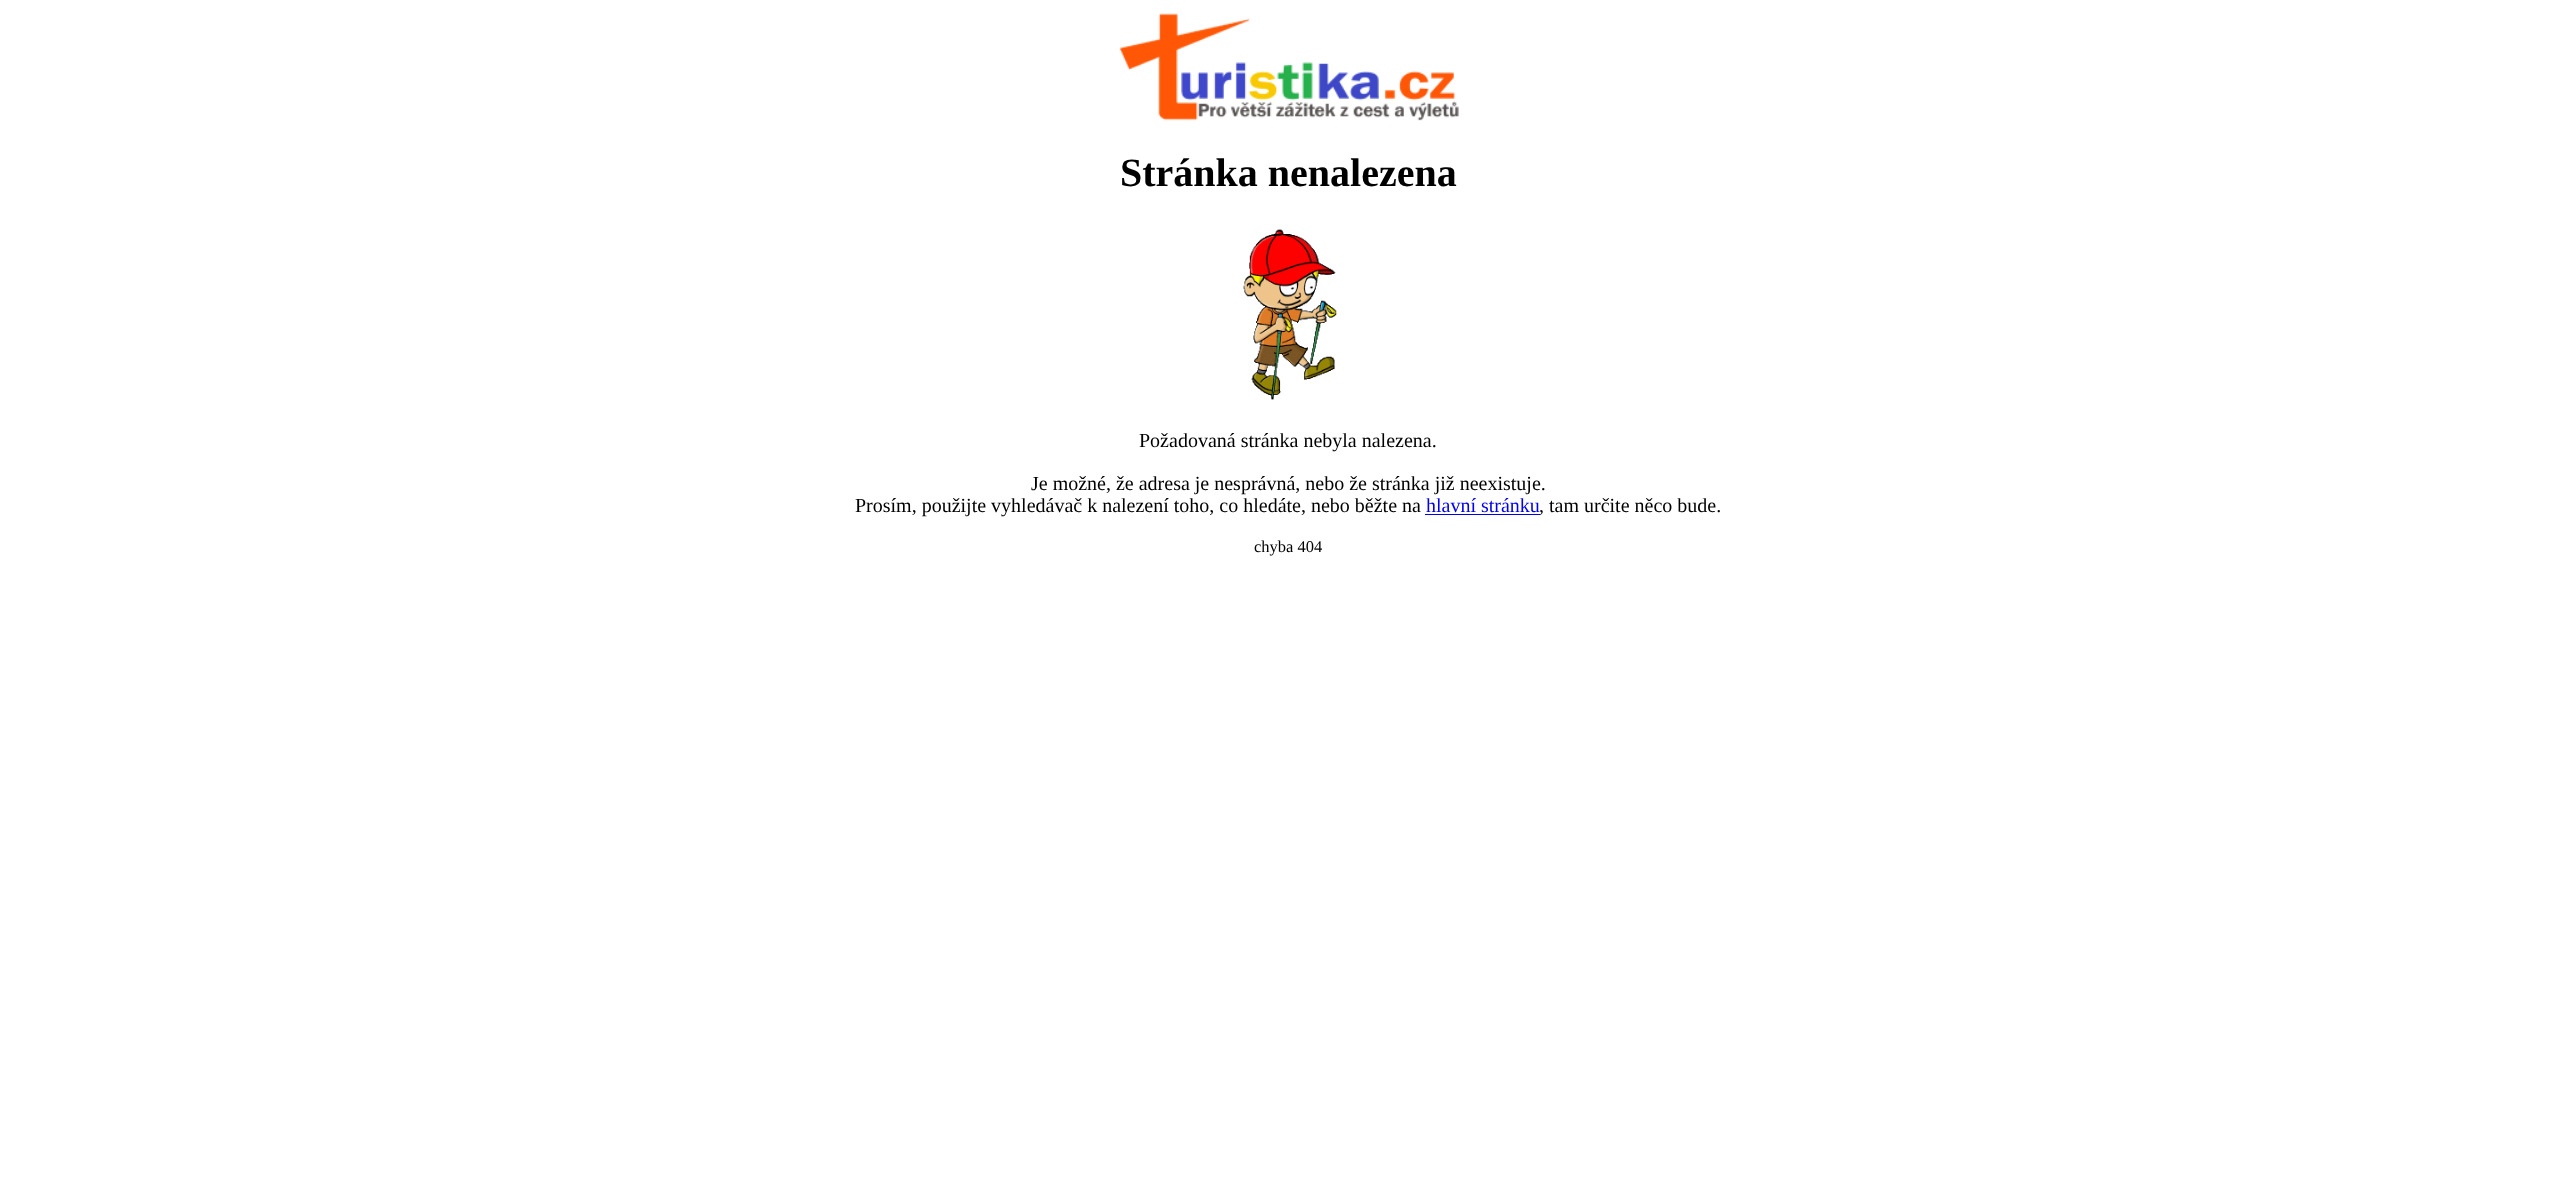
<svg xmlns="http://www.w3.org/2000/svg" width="2576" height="1192">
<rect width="100%" height="100%" fill="#fff"/>
<image x="1119" y="13" width="340" height="108" href="media/1.png"/>
<text x="1120" y="186" style="font-family:Liberation Serif;font-size:40px;font-weight:bold;fill:#000">Stránka nenalezena</text>
<image x="1243" y="229" width="94" height="171" href="media/2.png"/>
<text x="1139" y="447" style="font-family:Liberation Serif;font-size:20px;fill:#000">Požadovaná stránka nebyla nalezena.</text>
<text x="1031" y="490" style="font-family:Liberation Serif;font-size:20px;fill:#000">Je možné, že adresa je nesprávná, nebo že stránka již neexistuje.</text>
<text x="855" y="512" style="font-family:Liberation Serif;font-size:20px;fill:#000">Prosím, použijte vyhledávač k nalezení toho, co hledáte, nebo běžte na</text>
<text x="1426" y="512" style="font-family:Liberation Serif;font-size:20px;fill:#00e">hlavní stránku</text>
<rect x="1425" y="514" width="115" height="1" fill="#00e"/>
<text x="1539" y="512" style="font-family:Liberation Serif;font-size:20px;fill:#000">, tam určite něco bude.</text>
<text x="1254" y="552" style="font-family:Liberation Serif;font-size:16.5px;fill:#000">chyba 404</text>
</svg>
